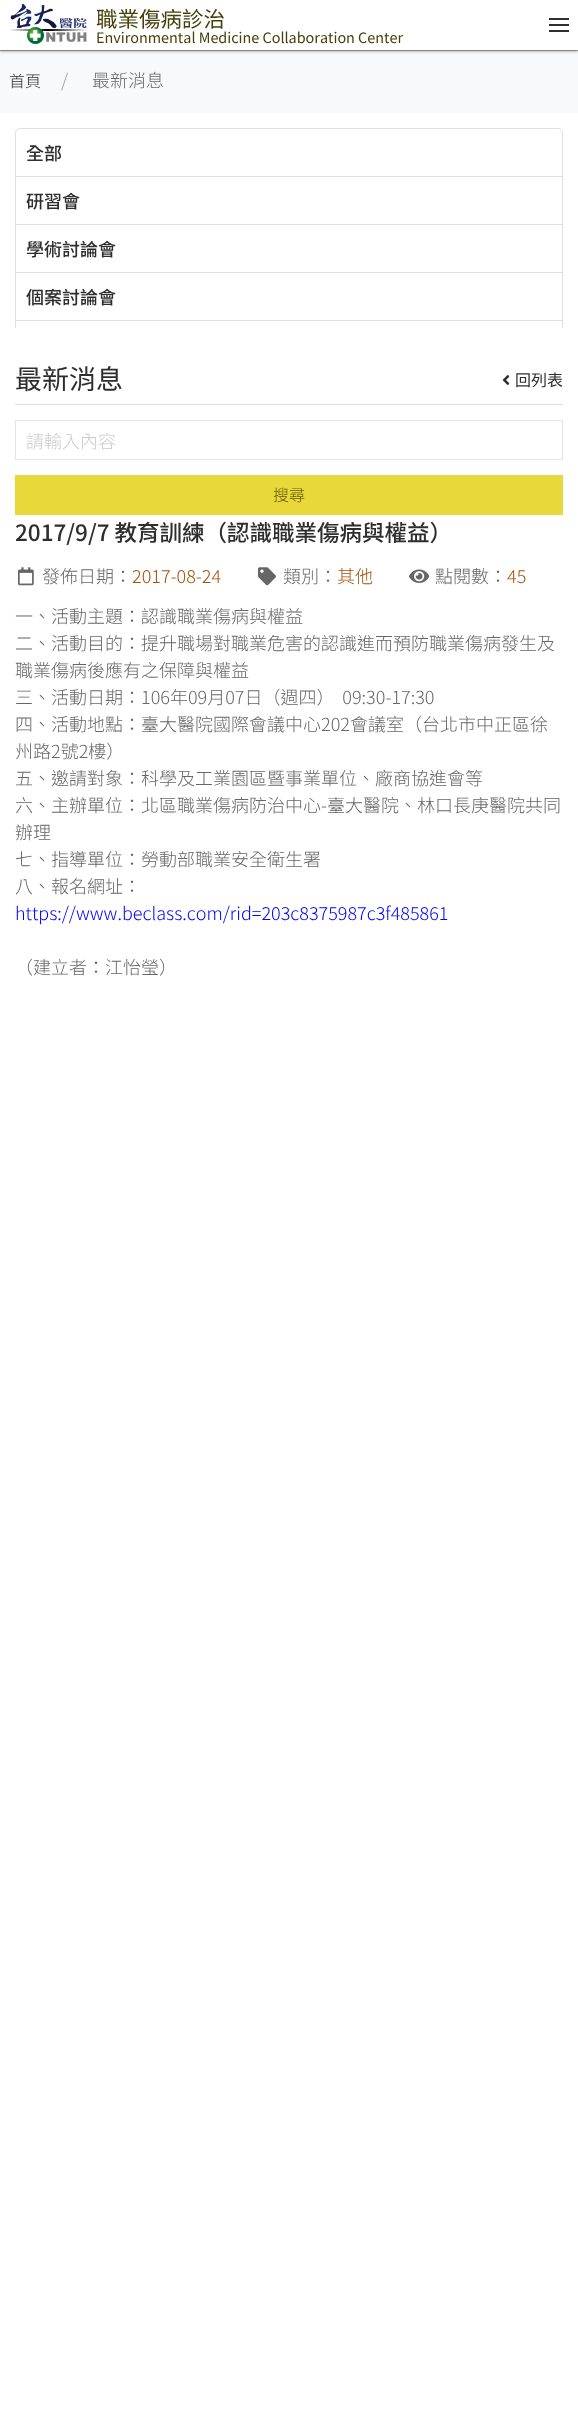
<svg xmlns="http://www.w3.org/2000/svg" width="578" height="2419">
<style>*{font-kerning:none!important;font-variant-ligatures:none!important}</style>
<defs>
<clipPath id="clip1"><rect x="15" y="128" width="548" height="200"/></clipPath>
</defs>
<rect width="100%" height="100%" fill="#f7fafc"/>
<rect y="1" width="578" height="51" fill="#0000000f" filter="blur(1px)"/>
<rect y="1" width="578" height="51" fill="#0000001a" filter="blur(1.5px)"/>
<rect y="1" width="578" height="50" fill="#0000000f" filter="blur(1px)"/>
<rect y="1" width="578" height="50" fill="#0000001a" filter="blur(1.5px)"/>
<rect width="578" height="50" fill="#fff"/>
<image x="10" y="4" width="77" height="40" href="media/1.png"/>
<text x="96" y="27" style="font-family:Noto Sans TC;font-size:21.5px;fill:#453f08">職業傷病診治</text>
<text x="96" y="43" style="font-family:Noto Sans TC;font-size:14.4px;fill:#453f08">Environmental Medicine Collaboration Center</text>
<rect x="549" y="24" width="20" height="2" fill="#2e2e2e"/>
<rect x="549" y="18" width="20" height="2" fill="#2e2e2e"/>
<rect x="549" y="30" width="20" height="2" fill="#2e2e2e"/>
<rect y="50" width="578" height="1" fill="#0000004d"/>
<text x="9" y="87" style="font-family:Noto Sans TC;font-size:16px;font-weight:300;fill:#2e2e2e">首頁</text>
<text x="61" y="87" style="font-family:Noto Sans TC;font-size:18px;font-weight:300;fill:#999">/</text>
<text x="92" y="87" style="font-family:Noto Sans TC;font-size:18px;font-weight:300;fill:#666">最新消息</text>
<rect y="113" width="578" height="2306" fill="#fff"/>
<path d="M20 128.5h538c2.5 0 4.5 2 4.5 4.5v43.5h-547v-43.5c0-2.5 2-4.5 4.5-4.5z" fill="none" stroke="#e0e0e0"/>
<text x="26" y="160" style="font-family:Noto Sans TC;font-size:18px;font-weight:500;fill:#2e2e2e">全部</text>
<rect x="15.5" y="176.5" width="547" height="48" fill="none" stroke="#e0e0e0"/>
<text x="26" y="208" style="font-family:Noto Sans TC;font-size:18px;font-weight:500;fill:#2e2e2e">研習會</text>
<rect x="15.5" y="224.5" width="547" height="48" fill="none" stroke="#e0e0e0"/>
<text x="26" y="256" style="font-family:Noto Sans TC;font-size:18px;font-weight:500;fill:#2e2e2e">學術討論會</text>
<rect x="15.5" y="272.5" width="547" height="48" fill="none" stroke="#e0e0e0"/>
<text x="26" y="304" style="font-family:Noto Sans TC;font-size:18px;font-weight:500;fill:#2e2e2e">個案討論會</text>
<text x="15" y="389" style="font-family:Noto Sans TC;font-size:27px;fill:#2e2e2e">最新消息</text>
<g clip-path="url(#clip1)">
<rect x="15.5" y="320.5" width="547" height="48" fill="none" stroke="#e0e0e0"/>
</g>
<rect x="15" y="404" width="548" height="1" fill="#e0e0e0"/>
<image x="502" y="375" width="8" height="10" href="media/2.png"/>
<text x="515" y="386" style="font-family:Noto Sans TC;font-size:16px;fill:#2e2e2e">回列表</text>
<rect x="15.5" y="420.5" width="547" height="39" fill="none" stroke="#e5e5e5"/>
<text x="26" y="448" style="font-family:Noto Sans TC;font-size:18px;font-weight:300;fill:#ccc">請輸入內容</text>
<rect x="15" y="475" width="548" height="40" fill="#e9d839"/>
<text x="273" y="501" style="font-family:Noto Sans TC;font-size:16px;font-weight:300;fill:#655c0b">搜尋</text>
<text x="15" y="541" style="font-family:Noto Sans TC;font-size:22.5px;font-weight:500;fill:#2e2e2e">2017/9/7 教育訓練（認識職業傷病與權益）</text>
<image x="18" y="567" width="16" height="19" href="media/3.png"/>
<text x="42" y="583" style="font-family:Noto Sans TC;font-size:18px;font-weight:300;fill:#666">發佈日期：</text>
<text x="132" y="583" style="font-family:Noto Sans TC;font-size:18px;font-weight:300;fill:#a45009">2017-08-24</text>
<image x="258" y="567" width="18" height="19" href="media/4.png"/>
<text x="283" y="583" style="font-family:Noto Sans TC;font-size:18px;font-weight:300;fill:#666">類別：</text>
<text x="337" y="583" style="font-family:Noto Sans TC;font-size:18px;font-weight:300;fill:#a45009">其他</text>
<image x="409" y="569" width="21" height="14" href="media/5.png"/>
<text x="435" y="583" style="font-family:Noto Sans TC;font-size:18px;font-weight:300;fill:#666">點閱數：</text>
<text x="507" y="583" style="font-family:Noto Sans TC;font-size:18px;font-weight:300;fill:#a45009">45</text>
<text x="15" y="623" style="font-family:Noto Sans TC;font-size:18px;font-weight:300;fill:#666">一、活動主題：認識職業傷病與權益</text>
<text x="15" y="650" style="font-family:Noto Sans TC;font-size:18px;font-weight:300;fill:#666">二、活動目的：提升職場對職業危害的認識進而預防職業傷病發生及</text>
<text x="15" y="677" style="font-family:Noto Sans TC;font-size:18px;font-weight:300;fill:#666">職業傷病後應有之保障與權益</text>
<text x="15" y="704" style="font-family:Noto Sans TC;font-size:18px;font-weight:300;fill:#666" xml:space="preserve">三、活動日期：106年09月07日（週四）  09:30-17:30</text>
<text x="15" y="731" style="font-family:Noto Sans TC;font-size:18px;font-weight:300;fill:#666">四、活動地點：臺大醫院國際會議中心202會議室（台北市中正區徐</text>
<text x="15" y="758" style="font-family:Noto Sans TC;font-size:18px;font-weight:300;fill:#666">州路2號2樓）</text>
<text x="15" y="785" style="font-family:Noto Sans TC;font-size:18px;font-weight:300;fill:#666">五、邀請對象：科學及工業園區暨事業單位、廠商協進會等</text>
<text x="15" y="812" style="font-family:Noto Sans TC;font-size:18px;font-weight:300;fill:#666">六、主辦單位：北區職業傷病防治中心-臺大醫院、林口長庚醫院共同</text>
<text x="15" y="839" style="font-family:Noto Sans TC;font-size:18px;font-weight:300;fill:#666">辦理</text>
<text x="15" y="866" style="font-family:Noto Sans TC;font-size:18px;font-weight:300;fill:#666">七、指導單位：勞動部職業安全衛生署</text>
<text x="15" y="893" style="font-family:Noto Sans TC;font-size:18px;font-weight:300;fill:#666">八、報名網址：</text>
<text x="15" y="920" style="font-family:Noto Sans TC;font-size:18px;font-weight:300;fill:#00f">https://www.beclass.com/rid=203c8375987c3f485861</text>
<text x="15" y="974" style="font-family:Noto Sans TC;font-size:18px;font-weight:300;fill:#666">（建立者：江怡瑩）</text>
</svg>
